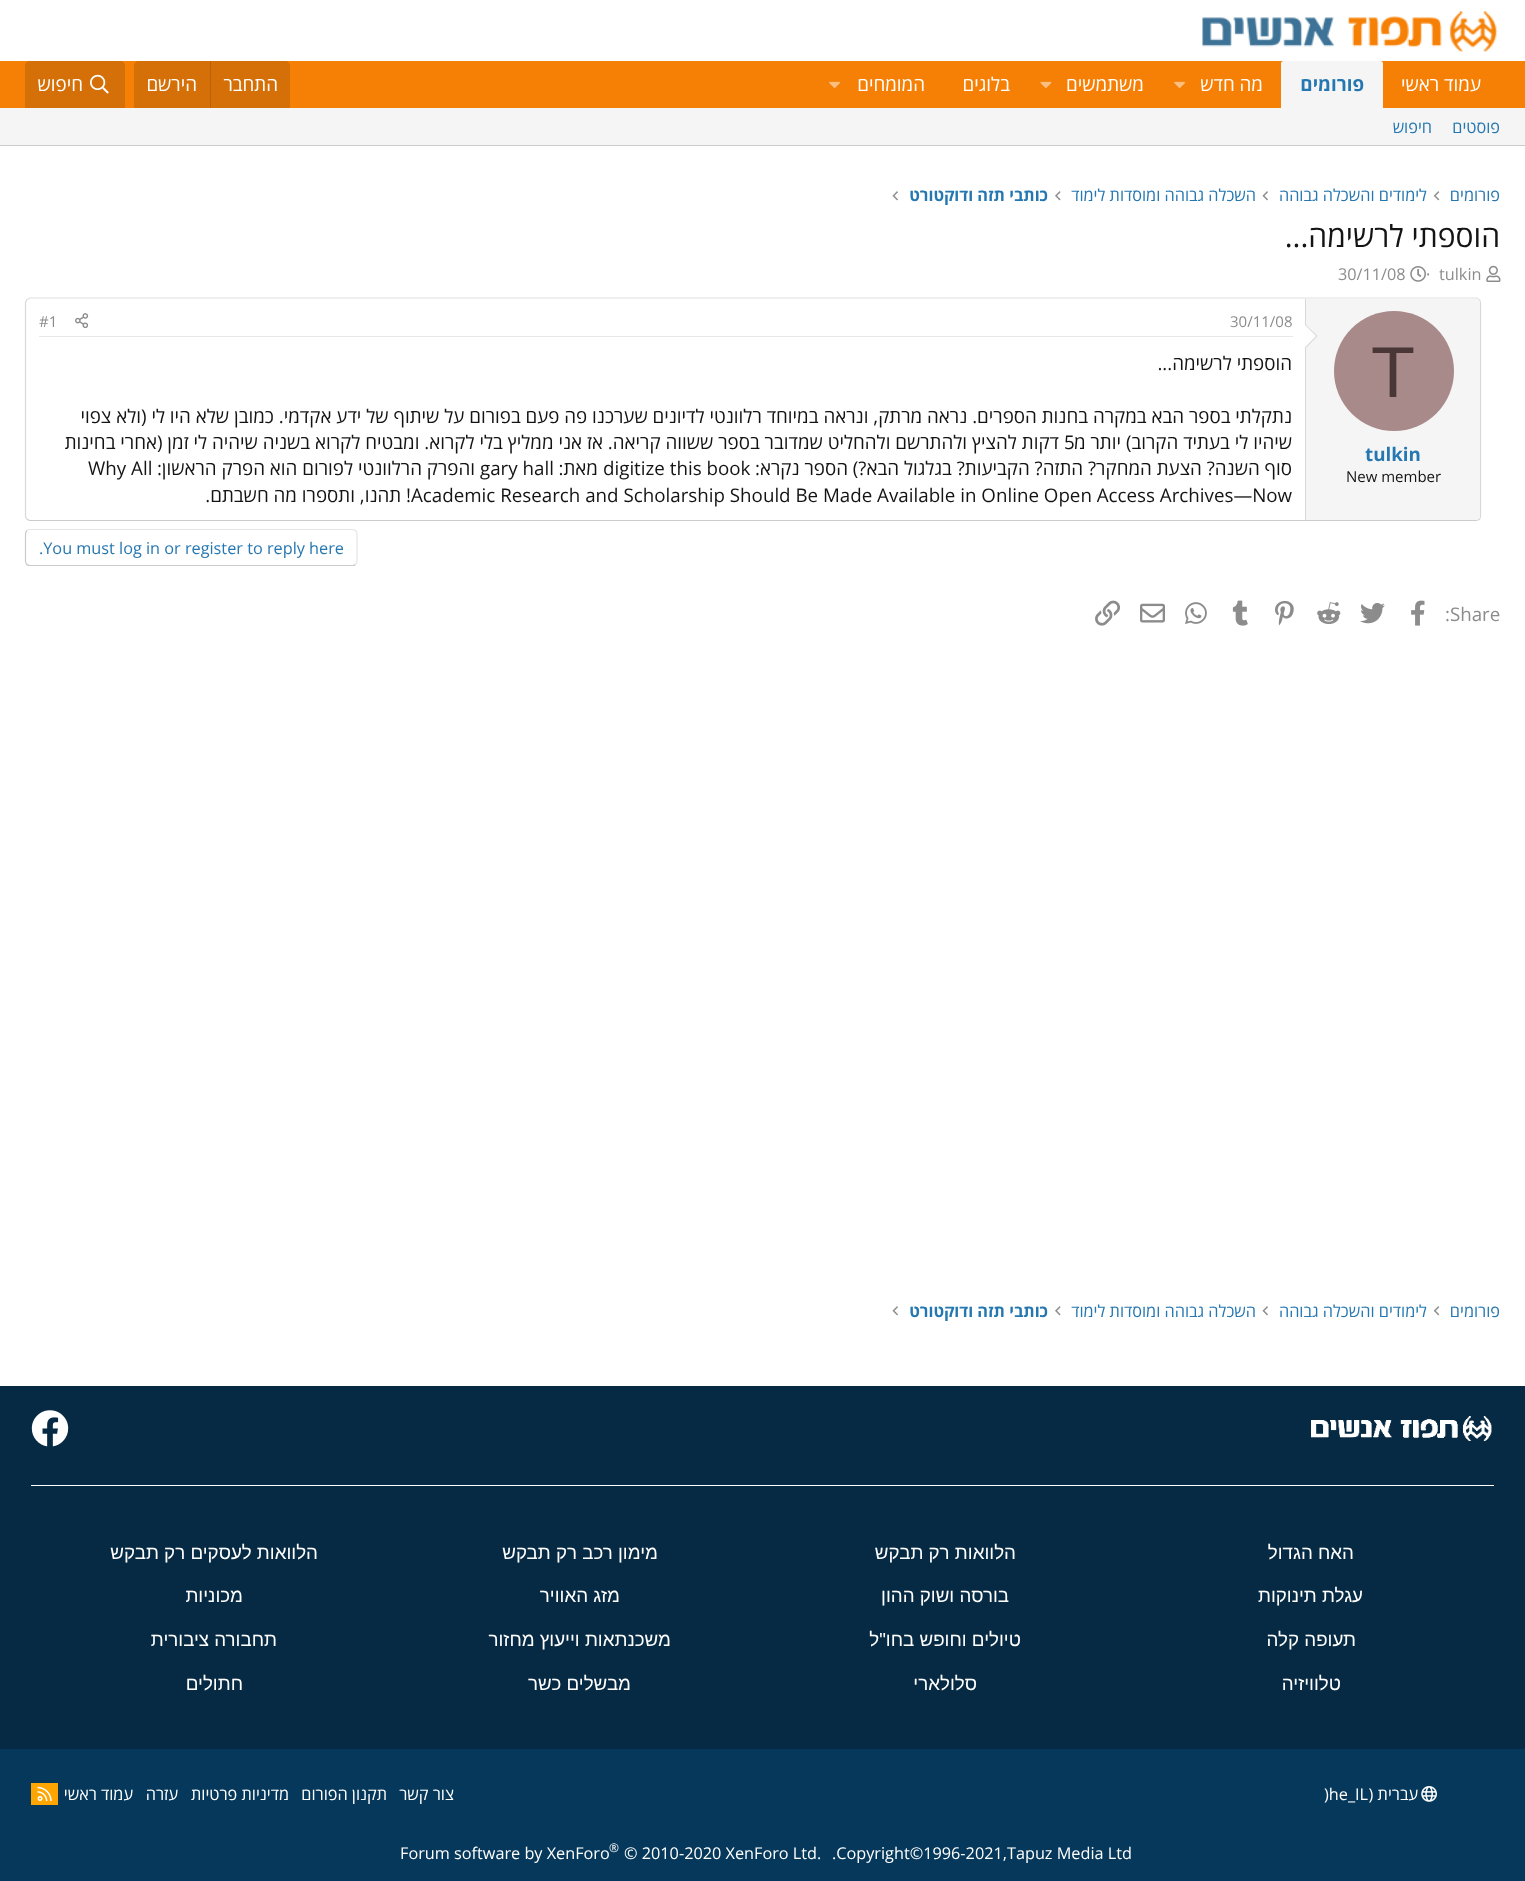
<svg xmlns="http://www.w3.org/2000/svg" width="1525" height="1881">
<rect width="100%" height="100%" fill="#fff"/>
<image x="1202" y="11" width="295" height="41" href="media/1.png"/>
<rect y="61" width="1525" height="47" fill="#f68005"/>
<text x="1481" y="91" style="font-family:Open Sans;font-size:18.75px;direction:rtl;fill:#fff">עמוד ראשי</text>
<path d="M1283.5 61h97c1.5 0 2.5 1 2.5 2.5v44.5h-102v-44.5c0-1.5 1-2.5 2.5-2.5z" fill="#f5f5f5"/>
<text x="1364" y="91" style="font-family:Open Sans;font-size:18.75px;font-weight:bold;direction:rtl;fill:#2577b1">פורומים</text>
<text x="1263" y="91" style="font-family:Open Sans;font-size:18.75px;direction:rtl;fill:#fff">מה חדש</text>
<image x="1174" y="81" width="11" height="7" href="media/2.png"/>
<text x="1144" y="91" style="font-family:Open Sans;font-size:18.75px;direction:rtl;fill:#fff">משתמשים</text>
<image x="1040" y="81" width="12" height="7" href="media/3.png"/>
<text x="1010" y="91" style="font-family:Open Sans;font-size:18.75px;direction:rtl;fill:#fff">בלוגים</text>
<text x="925" y="91" style="font-family:Open Sans;font-size:18.75px;direction:rtl;fill:#fff">המומחים</text>
<image x="829" y="81" width="11" height="7" href="media/2.png"/>
<path d="M139 61h146c3 0 5 2 5 5v42h-156v-42c0-3 2-5 5-5z" fill="#d47007"/>
<text x="278" y="91" style="font-family:Open Sans;font-size:18.75px;direction:rtl;fill:#fff">התחבר</text>
<rect x="210" y="61" width="1" height="47" fill="#b76209"/>
<text x="197" y="91" style="font-family:Open Sans;font-size:18.75px;direction:rtl;fill:#fff">הירשם</text>
<path d="M30 61h90c3 0 5 2 5 5v42h-100v-42c0-3 2-5 5-5z" fill="#d47007"/>
<image x="90" y="74" width="19" height="20" href="media/4.png"/>
<text x="83" y="91" style="font-family:Open Sans;font-size:18.75px;direction:rtl;fill:#fff">חיפוש</text>
<rect y="108" width="1525" height="37" fill="#f5f5f5"/>
<rect y="145" width="1525" height="1" fill="#cbcbcb"/>
<text x="1500" y="133" style="font-family:Open Sans;font-size:16.25px;direction:rtl;fill:#2577b1">פוסטים</text>
<text x="1432" y="133" style="font-family:Open Sans;font-size:16.25px;direction:rtl;fill:#2577b1">חיפוש</text>
<text x="1500" y="201" style="font-family:Open Sans;font-size:16.25px;direction:rtl;fill:#2577b1">פורומים</text>
<image x="1433" y="191" width="7" height="10" href="media/5.png"/>
<text x="1427" y="201" style="font-family:Open Sans;font-size:16.25px;direction:rtl;fill:#2577b1">לימודים והשכלה גבוהה</text>
<image x="1262" y="191" width="6" height="10" href="media/6.png"/>
<text x="1256" y="201" style="font-family:Open Sans;font-size:16.25px;direction:rtl;fill:#2577b1">השכלה גבוהה ומוסדות לימוד</text>
<image x="1055" y="191" width="6" height="10" href="media/7.png"/>
<text x="1048" y="201" style="font-family:Open Sans;font-size:16.25px;font-weight:bold;direction:rtl;fill:#2577b1">כותבי תזה ודוקטורט</text>
<image x="892" y="191" width="6" height="10" href="media/6.png"/>
<text x="1500" y="247" style="font-family:Open Sans;font-size:30px;direction:rtl;fill:#141414">הוספתי לרשימה...</text>
<image x="1486" y="265" width="15" height="17" href="media/8.png"/>
<text x="1439" y="280" style="font-family:Open Sans;font-size:16.25px;fill:#8c8c8c">tulkin</text>
<text x="1426" y="280" style="font-family:Open Sans;font-size:16.25px;fill:#8c8c8c">·</text>
<image x="1410" y="266" width="16" height="16" href="media/9.png"/>
<text x="1338" y="280" style="font-family:Open Sans;font-size:16.25px;fill:#8c8c8c">30/11/08</text>
<path d="M27 299.5l3-1.5h1446l3.5 1.5" fill="none" stroke="#dfdfdf" stroke-width="1.2"/>
<path d="M1479.5 299.5l1 3v214l-1 3" fill="none" stroke="#d8d8d8" stroke-width="1.2"/>
<path d="M1479.5 519.5l-3.5 1h-1446l-3-1" fill="none" stroke="#cbcbcb" stroke-width="1.2"/>
<path d="M27 519.5l-1.5-3v-178.5v-35.5l1.5-3" fill="none" stroke="#d8d8d8" stroke-width="1.2"/>
<path d="M1305 299h171c2 0 4 2 4 4v213c0 2-2 4-4 4h-171z" fill="#f5f5f5"/>
<rect x="1305" y="299" width="1" height="221" fill="#d8d8d8"/>
<path d="M1305 349v-25l12.5 12z" fill="#d8d8d8"/>
<path d="M1305 347.5v-22.5l11 11z" fill="#fefefe"/>
<circle cx="1394" cy="371" r="60" fill="#a88a8a"/>
<text x="1371" y="397" style="font-family:Liberation Sans;font-size:72px;fill:#493636">T</text>
<text x="1365" y="461" style="font-family:Open Sans;font-size:18.75px;font-weight:bold;fill:#2577b1">tulkin</text>
<text x="1346" y="482" style="font-family:Open Sans;font-size:15px;fill:#141414">New member</text>
<rect x="39" y="336" width="1254" height="1" fill="#e7e7e7"/>
<text x="1230" y="327" style="font-family:Open Sans;font-size:15px;fill:#8c8c8c">30/11/08</text>
<image x="75" y="313" width="14" height="16" href="media/10.png"/>
<text x="39" y="327" style="font-family:Open Sans;font-size:15px;fill:#8c8c8c">#1</text>
<text x="1292" y="370" style="font-family:Open Sans;font-size:18.75px;direction:rtl;fill:#141414">הוספתי לרשימה...</text>
<text x="1292" y="423" style="font-family:Open Sans;font-size:18.75px;direction:rtl;fill:#141414">נתקלתי בספר הבא במקרה בחנות הספרים. נראה מרתק, ונראה במיוחד רלוונטי לדיונים שערכנו פה פעם בפורום על שיתוף של ידע אקדמי. כמובן שלא היו לי (ולא צפוי</text>
<text x="1292" y="449" style="font-family:Open Sans;font-size:18.75px;direction:rtl;fill:#141414">שיהיו לי בעתיד הקרוב) יותר מ</text>
<text x="1064" y="449" style="font-family:Open Sans;font-size:18.75px;fill:#141414">5</text>
<text x="1059" y="449" style="font-family:Open Sans;font-size:18.75px;direction:rtl;fill:#141414">דקות להציץ ולהתרשם ולהחליט שמדובר בספר ששווה קריאה. אז אני ממליץ בלי לקרוא. ומבטיח לקרוא בשניה שיהיה לי זמן (אחרי בחינות</text>
<text x="1292" y="475" style="font-family:Open Sans;font-size:18.75px;direction:rtl;fill:#141414">סוף השנה? הצעת המחקר? התזה? הקביעות? בגלגול הבא?) הספר נקרא:</text>
<text x="603" y="475" style="font-family:Open Sans;font-size:18.75px;fill:#141414">digitize this book</text>
<text x="598" y="475" style="font-family:Open Sans;font-size:18.75px;direction:rtl;fill:#141414">מאת:</text>
<text x="480" y="475" style="font-family:Open Sans;font-size:18.75px;fill:#141414">gary hall</text>
<text x="475" y="475" style="font-family:Open Sans;font-size:18.75px;direction:rtl;fill:#141414">והפרק הרלוונטי לפורום הוא הפרק הראשון:</text>
<text x="88" y="475" style="font-family:Open Sans;font-size:18.75px;fill:#141414">Why All</text>
<text x="411" y="502" style="font-family:Open Sans;font-size:18.75px;fill:#141414">Academic Research and Scholarship Should Be Made Available in Online Open Access Archives—Now</text>
<text x="411" y="502" style="font-family:Open Sans;font-size:18.75px;direction:rtl;fill:#141414">! תהנו, ותספרו מה חשבתם.</text>
<path d="M27 530.5c.5-.5 2-1 3-1h322.5c1 0 2.5 .5 3 1c1 1 1.5 2 1.5 3.5v27c0 1.5-.5 2.5-1.5 3.5" fill="none" stroke="#e5e5e5" stroke-width="1.2"/>
<path d="M355.5 564.5c-.5 .5-2 1-3 1h-322.5c-1 0-2.5-.5-3-1c-1-1-1.5-2-1.5-3.5v-27c0-1.5 .5-2.5 1.5-3.5" fill="none" stroke="#cbcbcb" stroke-width="1.2"/>
<text x="39" y="554" style="font-family:Open Sans;font-size:16.25px;fill:#2577b1">.You must log in or register to reply here</text>
<text x="1445" y="621" style="font-family:Open Sans;font-size:18.75px;fill:#8c8c8c">:Share</text>
<image x="1411" y="600" width="14" height="26" href="media/11.png"/>
<image x="1360" y="603" width="25" height="21" href="media/12.png"/>
<image x="1317" y="602" width="24" height="23" href="media/13.png"/>
<image x="1275" y="600" width="19" height="26" href="media/14.png"/>
<image x="1232" y="600" width="16" height="26" href="media/15.png"/>
<image x="1185" y="602" width="22" height="22" href="media/16.png"/>
<image x="1140" y="603" width="25" height="20" href="media/17.png"/>
<image x="1095" y="600" width="25" height="26" href="media/18.png"/>
<text x="1500" y="1317" style="font-family:Open Sans;font-size:16.25px;direction:rtl;fill:#2577b1">פורומים</text>
<image x="1433" y="1306" width="7" height="10" href="media/5.png"/>
<text x="1427" y="1317" style="font-family:Open Sans;font-size:16.25px;direction:rtl;fill:#2577b1">לימודים והשכלה גבוהה</text>
<image x="1262" y="1306" width="6" height="10" href="media/6.png"/>
<text x="1256" y="1317" style="font-family:Open Sans;font-size:16.25px;direction:rtl;fill:#2577b1">השכלה גבוהה ומוסדות לימוד</text>
<image x="1055" y="1306" width="6" height="10" href="media/7.png"/>
<text x="1048" y="1317" style="font-family:Open Sans;font-size:16.25px;font-weight:bold;direction:rtl;fill:#2577b1">כותבי תזה ודוקטורט</text>
<image x="892" y="1306" width="6" height="10" href="media/6.png"/>
<rect y="1386" width="1525" height="363" fill="#062a43"/>
<rect x="31" y="1485" width="1463" height="1" fill="#fff"/>
<image x="1311" y="1416" width="181" height="25" href="media/19.png"/>
<image x="31" y="1410" width="38" height="37" href="media/20.png"/>
<text x="1354" y="1559" style="font-family:Liberation Sans;font-size:18.75px;direction:rtl;fill:#fff">האח הגדול</text>
<text x="1016" y="1559" style="font-family:Liberation Sans;font-size:18.75px;direction:rtl;fill:#fff">הלוואות רק תבקש</text>
<text x="658" y="1559" style="font-family:Liberation Sans;font-size:18.75px;direction:rtl;fill:#fff">מימון רכב רק תבקש</text>
<text x="318" y="1559" style="font-family:Liberation Sans;font-size:18.75px;direction:rtl;fill:#fff">הלוואות לעסקים רק תבקש</text>
<text x="1363" y="1602" style="font-family:Liberation Sans;font-size:18.75px;direction:rtl;fill:#fff">עגלת תינוקות</text>
<text x="1009" y="1602" style="font-family:Liberation Sans;font-size:18.75px;direction:rtl;fill:#fff">בורסה ושוק ההון</text>
<text x="620" y="1602" style="font-family:Liberation Sans;font-size:18.75px;direction:rtl;fill:#fff">מזג האוויר</text>
<text x="243" y="1602" style="font-family:Liberation Sans;font-size:18.75px;direction:rtl;fill:#fff">מכוניות</text>
<text x="1356" y="1646" style="font-family:Liberation Sans;font-size:18.75px;direction:rtl;fill:#fff">תעופה קלה</text>
<text x="1021" y="1646" style="font-family:Liberation Sans;font-size:18.75px;direction:rtl;fill:#fff">טיולים וחופש בחו"ל</text>
<text x="671" y="1646" style="font-family:Liberation Sans;font-size:18.75px;direction:rtl;fill:#fff">משכנתאות וייעוץ מחזור</text>
<text x="277" y="1646" style="font-family:Liberation Sans;font-size:18.75px;direction:rtl;fill:#fff">תחבורה ציבורית</text>
<text x="1341" y="1690" style="font-family:Liberation Sans;font-size:18.75px;direction:rtl;fill:#fff">טלוויזיה</text>
<text x="977" y="1690" style="font-family:Liberation Sans;font-size:18.75px;direction:rtl;fill:#fff">סלולארי</text>
<text x="631" y="1690" style="font-family:Liberation Sans;font-size:18.75px;direction:rtl;fill:#fff">מבשלים כשר</text>
<text x="243" y="1690" style="font-family:Liberation Sans;font-size:18.75px;direction:rtl;fill:#fff">חתולים</text>
<rect y="1749" width="1525" height="132" fill="#05385a"/>
<image x="1421" y="1786" width="16" height="16" href="media/21.png"/>
<text x="1418" y="1800" style="font-family:Open Sans;font-size:16.25px;direction:rtl;fill:#fff">עברית (</text>
<text x="1324" y="1800" style="font-family:Open Sans;font-size:16.25px;fill:#fff">)he_IL</text>
<text x="454" y="1800" style="font-family:Open Sans;font-size:16.25px;direction:rtl;fill:#fff">צור קשר</text>
<text x="387" y="1800" style="font-family:Open Sans;font-size:16.25px;direction:rtl;fill:#fff">תקנון הפורום</text>
<text x="289" y="1800" style="font-family:Open Sans;font-size:16.25px;direction:rtl;fill:#fff">מדיניות פרטיות</text>
<text x="178" y="1800" style="font-family:Open Sans;font-size:16.25px;direction:rtl;fill:#fff">עזרה</text>
<text x="133" y="1800" style="font-family:Open Sans;font-size:16.25px;direction:rtl;fill:#fff">עמוד ראשי</text>
<rect x="31" y="1783" width="27" height="22" fill="#ffa500"/>
<image x="37" y="1786" width="15" height="15" href="media/22.png"/>
<text x="832" y="1859" style="font-family:Open Sans;font-size:16.25px;fill:#fff">.Copyright©1996-2021,Tapuz Media Ltd</text>
<text x="624" y="1859" style="font-family:Open Sans;font-size:16.25px;fill:#fff">© 2010-2020 XenForo Ltd.</text>
<text x="609" y="1852" style="font-family:Open Sans;font-size:12px;fill:#fff">®</text>
<text x="400" y="1859" style="font-family:Open Sans;font-size:16.25px;fill:#fff">Forum software by XenForo</text>
</svg>
